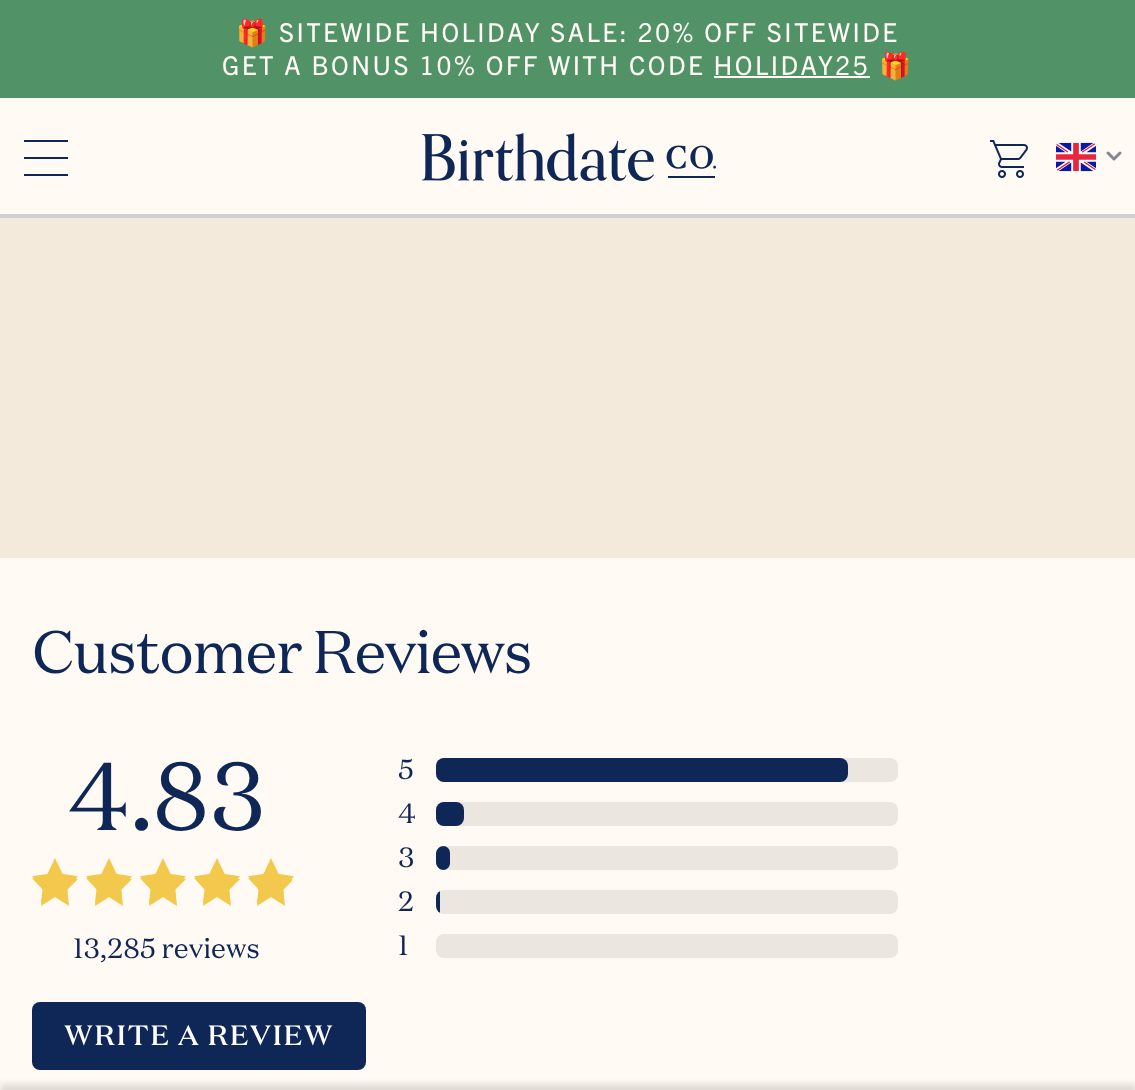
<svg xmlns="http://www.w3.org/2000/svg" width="1135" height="1090">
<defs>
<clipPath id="clip1"><rect x="248" y="858" width="44" height="50"/></clipPath>
<clipPath id="clip2"><rect x="436" y="890" width="462" height="24" rx="8"/></clipPath>
</defs>
<rect width="100%" height="100%" fill="#fffaf3"/>
<rect width="1135" height="98" fill="#519267"/>
<text x="236" y="42" style="font-family:Noto Color Emoji;font-size:26px;letter-spacing:2.45px;fill:#fffbf6">🎁</text>
<text x="279" y="42" style="font-family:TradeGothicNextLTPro;font-size:26px;letter-spacing:2.45px;fill:#fffbf6">SITEWIDE HOLIDAY SALE: 20% OFF SITEWIDE</text>
<text x="222" y="75" style="font-family:TradeGothicNextLTPro;font-size:26px;letter-spacing:2.45px;fill:#fffbf6">GET A BONUS 10% OFF WITH CODE HOLIDAY25</text>
<rect x="714" y="76" width="156" height="2" fill="#fffbf6"/>
<text x="879" y="75" style="font-family:Noto Color Emoji;font-size:26px;letter-spacing:2.45px;fill:#fffbf6">🎁</text>
<path d="M68 142h-44v-2h44zm0 17h-44v-2h44zm-44 17h44v-2h-44z" fill="#0f2756" fill-rule="evenodd"/>
<image x="422" y="133" width="294" height="48" href="media/1.png"/>
<image x="990" y="140" width="38" height="38" href="media/2.png"/>
<image x="1056" y="142" width="40" height="30" href="media/3.png"/>
<path d="M1108 153l6 6l6-6" fill="none" stroke="#838791" stroke-width="3" stroke-linecap="round" stroke-linejoin="round"/>
<rect y="214" width="1135" height="4" fill="#cfd0d4"/>
<rect y="218" width="1135" height="340" fill="#f3eadc"/>
<text x="32" y="673" style="font-family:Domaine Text;font-size:60px;letter-spacing:-1.25px;fill:#0f2756">Customer Reviews</text>
<text x="68" y="830" style="font-family:Domaine Text;font-size:96px;fill:#0f2756">4.83</text>
<path d="M74.5 877.5l-9 9.5l1 13.5l-11-7h-1l-11.5 7l1.5-13.5l-9-9.5l13-2l6.5-13.5l6.5 13.5z" fill="none" stroke="#f2c94c" stroke-width="3.4"/>
<path d="M128.5 877.5l-9 9.5l1 13.5l-11-7h-1l-11.5 7l1.5-13.5l-9-9.5l13-2l6.5-13.5l6.5 13.5z" fill="none" stroke="#f2c94c" stroke-width="3.4"/>
<path d="M182.5 877.5l-9 9.5l1 13.5l-11-7h-1l-11.5 7l1.5-13.5l-9-9.5l13-2l6.5-13.5l6.5 13.5z" fill="none" stroke="#f2c94c" stroke-width="3.4"/>
<path d="M236.5 877.5l-9 9.5l1 13.5l-11-7h-1l-11.5 7l1.5-13.5l-9-9.5l13-2l6.5-13.5l6.5 13.5z" fill="none" stroke="#f2c94c" stroke-width="3.4"/>
<path d="M290.5 877.5l-9 9.5l1 13.5l-11-7h-1l-11.5 7l1.5-13.5l-9-9.5l13-2l6.5-13.5l6.5 13.5z" fill="none" stroke="#f2c94c" stroke-width="3.4"/>
<path d="M69 906l-2-16l11-11l-15-3l-8-16l-8 16l-15 2l11 12l-2 16l14-9z" fill="#f2c94c"/>
<path d="M123 906l-2-16l11-11l-15-3l-8-16l-8 16l-15 2l11 12l-2 16l14-9z" fill="#f2c94c"/>
<path d="M177 906l-2-16l11-11l-15-3l-8-16l-8 16l-15 2l11 12l-2 16l14-9z" fill="#f2c94c"/>
<path d="M231 906l-2-16l11-11l-15-3l-8-16l-8 16l-15 2l11 12l-2 16l14-9z" fill="#f2c94c"/>
<g clip-path="url(#clip1)">
<path d="M285 906l-2-16l11-11l-15-3l-8-16l-8 16l-15 2l11 12l-2 16l14-9z" fill="#f2c94c"/>
</g>
<text x="73" y="958" style="font-family:Domaine Text;font-size:28px;fill:#0f2756">13,285 reviews</text>
<text x="398" y="779" style="font-family:Domaine Text;font-size:28px;fill:#0f2756">5</text>
<rect x="436" y="758" width="462" height="24" rx="8" fill="#ebe6e0"/>
<rect x="436" y="758" width="412" height="24" rx="8" fill="#0f2756"/>
<text x="398" y="823" style="font-family:Domaine Text;font-size:28px;fill:#0f2756">4</text>
<rect x="436" y="802" width="462" height="24" rx="8" fill="#ebe6e0"/>
<rect x="436" y="802" width="28" height="24" rx="8" fill="#0f2756"/>
<text x="398" y="867" style="font-family:Domaine Text;font-size:28px;fill:#0f2756">3</text>
<rect x="436" y="846" width="462" height="24" rx="8" fill="#ebe6e0"/>
<path d="M444 846h-1c4 0 7 3 7 7v10c0 4-3 7-7 7h1c-4.5 0-8-3.5-8-8v-8c0-4.5 3.5-8 8-8z" fill="#0f2756"/>
<text x="398" y="911" style="font-family:Domaine Text;font-size:28px;fill:#0f2756">2</text>
<rect x="436" y="890" width="462" height="24" rx="8" fill="#ebe6e0"/>
<g clip-path="url(#clip2)">
<rect x="436" y="890" width="4" height="24" rx="2" fill="#0f2756"/>
</g>
<text x="398" y="955" style="font-family:Domaine Text;font-size:28px;fill:#0f2756">1</text>
<rect x="436" y="934" width="462" height="24" rx="8" fill="#ebe6e0"/>
<rect x="32" y="1002" width="334" height="68" rx="8" fill="#0f2756"/>
<text x="64" y="1045" style="font-family:Domaine Text;font-size:28px;font-weight:500;letter-spacing:1.4px;fill:#fff">WRITE A REVIEW</text>
<rect y="1084" width="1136" height="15" fill="#0000001f" filter="blur(3px)"/>
</svg>
